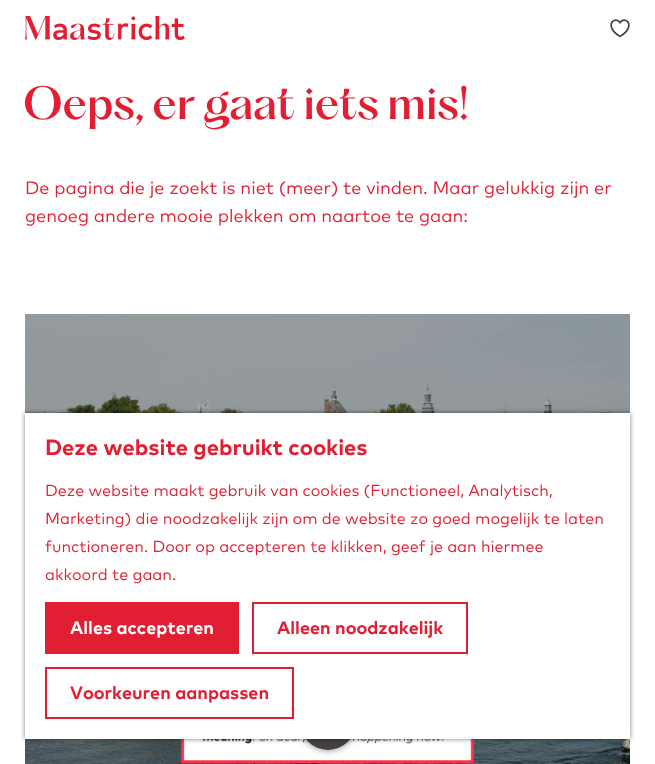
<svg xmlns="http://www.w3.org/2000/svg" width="655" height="764">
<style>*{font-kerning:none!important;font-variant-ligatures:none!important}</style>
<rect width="100%" height="100%" fill="#fff"/>
<image x="25" y="16" width="160" height="24" href="media/1.png"/>
<image x="610" y="19" width="20" height="19" href="media/2.png"/>
<image x="25" y="314" width="605" height="450" href="media/3.png"/>
<rect x="300" y="694" width="56" height="56" rx="28" fill="#00000080" filter="blur(3.5px)"/>
<circle cx="328" cy="722" r="28" fill="#454040"/>
<text x="23" y="119" style="font-family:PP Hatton;font-size:42px;font-weight:500;fill:#e11e32">Oeps, er gaat iets mis!</text>
<text x="25" y="194" style="font-family:'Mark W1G';font-size:18px;fill:#e11e32">De pagina die je zoekt is niet (meer) te vinden. Maar gelukkig zijn er</text>
<text x="25" y="222" style="font-family:'Mark W1G';font-size:18px;fill:#e11e32">genoeg andere mooie plekken om naartoe te gaan:</text>
<rect x="25" y="413" width="605" height="326" fill="#00000080" filter="blur(2.5px)"/>
<rect x="25" y="413" width="605" height="326" fill="#fff"/>
<text x="45" y="455" style="font-family:'Mark W1G';font-size:22px;font-weight:bold;fill:#e11e32">Deze website gebruikt cookies</text>
<text x="45" y="496" style="font-family:'Mark W1G';font-size:16px;fill:#e11e32">Deze website maakt gebruik van cookies (Functioneel, Analytisch,</text>
<text x="45" y="524" style="font-family:'Mark W1G';font-size:16px;fill:#e11e32">Marketing) die noodzakelijk zijn om de website zo goed mogelijk te laten</text>
<text x="45" y="552" style="font-family:'Mark W1G';font-size:16px;fill:#e11e32">functioneren. Door op accepteren te klikken, geef je aan hiermee</text>
<text x="45" y="580" style="font-family:'Mark W1G';font-size:16px;fill:#e11e32">akkoord te gaan.</text>
<rect x="45" y="602" width="194" height="52" fill="#e11e32"/>
<text x="70" y="634" style="font-family:'Mark W1G';font-size:18px;font-weight:bold;fill:#fff">Alles accepteren</text>
<rect x="253" y="603" width="214" height="50" fill="none" stroke="#e11e32" stroke-width="2"/>
<text x="277" y="634" style="font-family:'Mark W1G';font-size:18px;font-weight:bold;fill:#e11e32">Alleen noodzakelijk</text>
<rect x="46" y="668" width="247" height="50" fill="none" stroke="#e11e32" stroke-width="2"/>
<text x="70" y="699" style="font-family:'Mark W1G';font-size:18px;font-weight:bold;fill:#e11e32">Voorkeuren aanpassen</text>
</svg>
